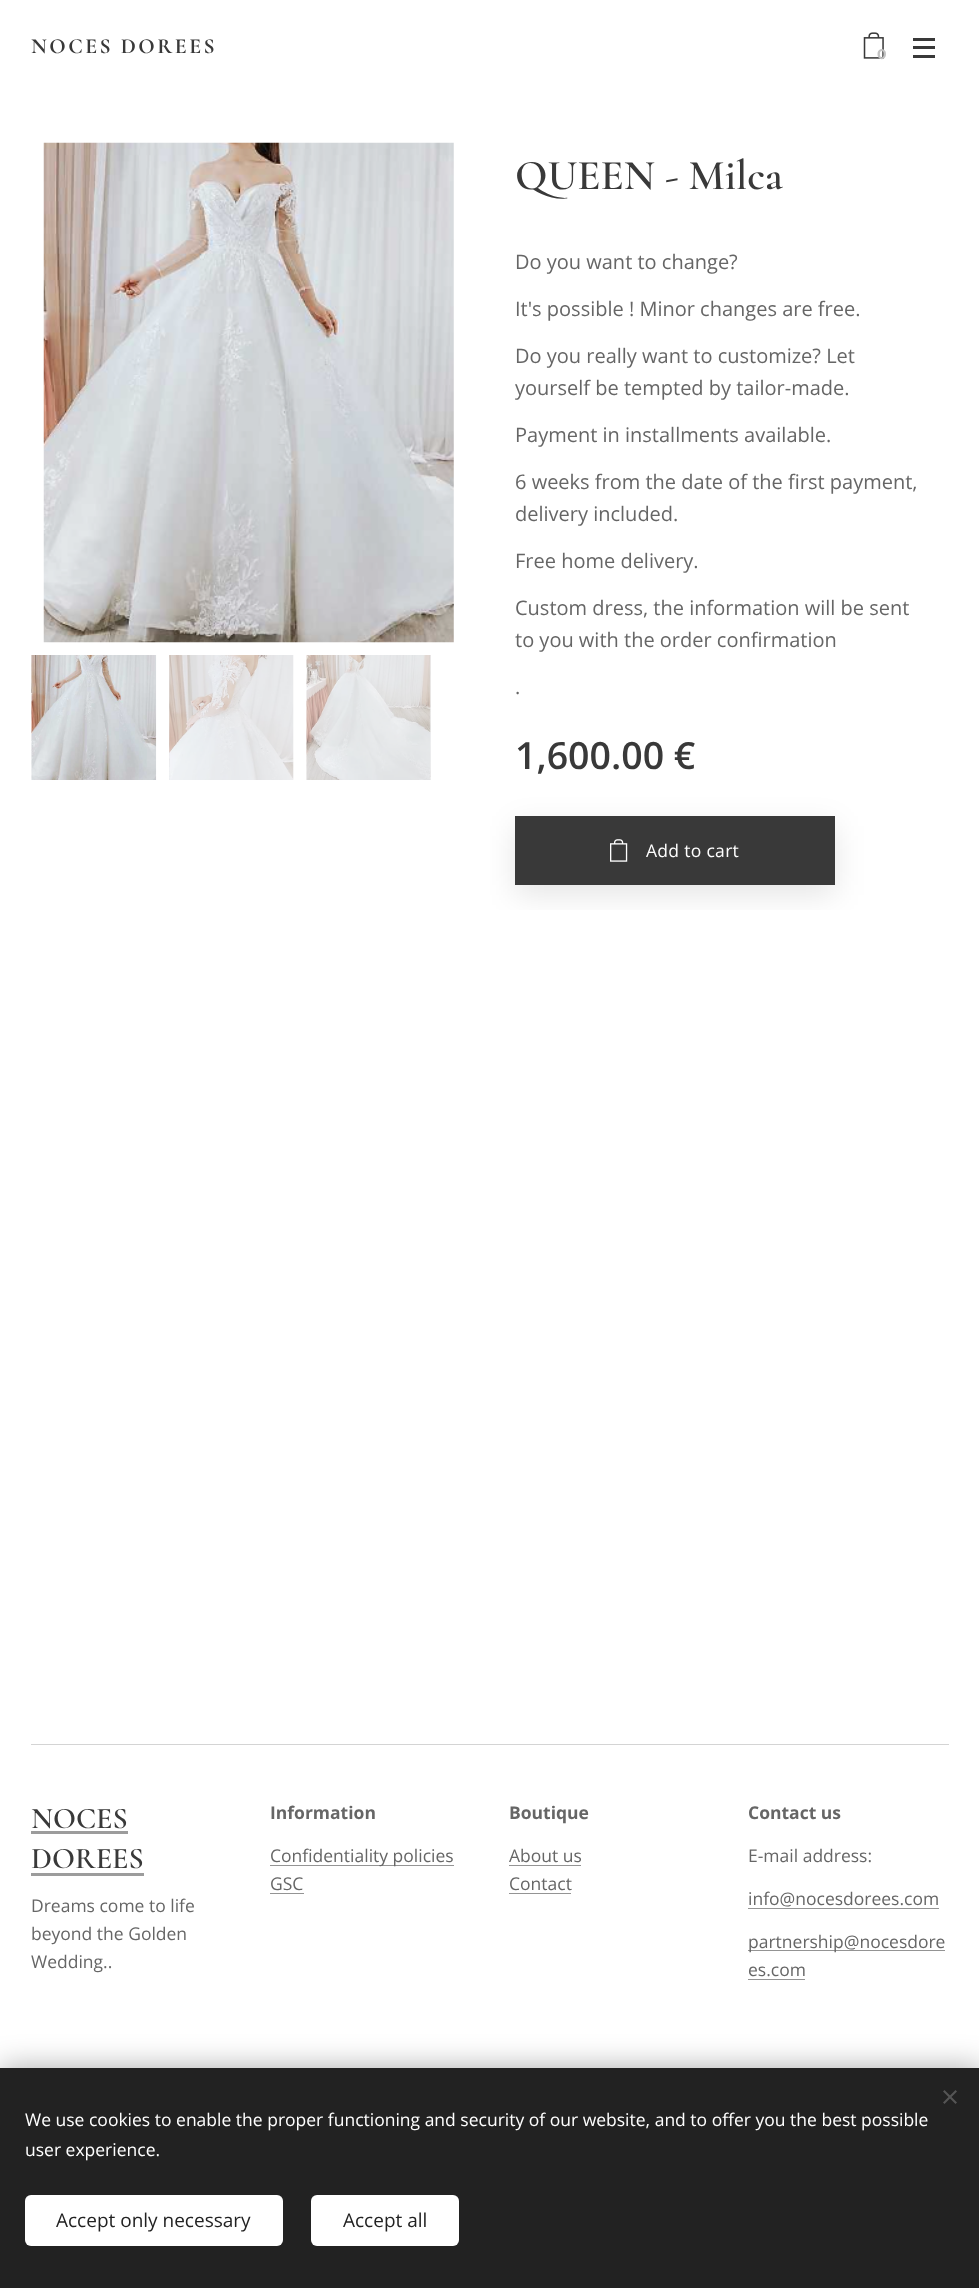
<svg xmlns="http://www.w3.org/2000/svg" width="979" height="2288">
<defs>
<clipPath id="clip1"><rect x="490" y="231" width="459" height="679"/></clipPath>
</defs>
<rect width="100%" height="100%" fill="#fff"/>
<text x="31" y="53" style="font-family:Cormorant;font-size:21.5px;font-weight:bold;letter-spacing:2.5px;fill:#393939">NOCES DOREES</text>
<image x="863" y="32" width="21" height="27" href="media/1.png"/>
<text x="877" y="59" style="font-family:Montserrat;font-size:14px;font-weight:bold;fill:#c3c3c3">0</text>
<rect x="913" y="46" width="22" height="3" fill="#393939"/>
<rect x="913" y="38" width="22" height="3" fill="#393939"/>
<rect x="913" y="55" width="22" height="3" fill="#393939"/>
<image x="43" y="142" width="411" height="501" href="media/2.png"/>
<image x="31" y="655" width="126" height="125" href="media/3.png"/>
<image x="169" y="655" width="125" height="125" href="media/4.png"/>
<image x="306" y="655" width="125" height="125" href="media/5.png"/>
<text x="515" y="189" style="font-family:Cormorant;font-size:42.5px;font-weight:600;fill:#393939">QUEEN - Milca</text>
<text x="515" y="269" style="font-family:Open Sans;font-size:20px;fill:#666">Do you want to change?</text>
<text x="515" y="316" style="font-family:Open Sans;font-size:20px;fill:#666">It's possible ! Minor changes are free.</text>
<text x="515" y="363" style="font-family:Open Sans;font-size:20px;fill:#666">Do you really want to customize? Let</text>
<text x="515" y="395" style="font-family:Open Sans;font-size:20px;fill:#666">yourself be tempted by tailor-made.</text>
<text x="515" y="442" style="font-family:Open Sans;font-size:20px;fill:#666">Payment in installments available.</text>
<text x="515" y="489" style="font-family:Open Sans;font-size:20px;fill:#666">6 weeks from the date of the first payment,</text>
<text x="515" y="521" style="font-family:Open Sans;font-size:20px;fill:#666">delivery included.</text>
<text x="515" y="568" style="font-family:Open Sans;font-size:20px;fill:#666">Free home delivery.</text>
<text x="515" y="615" style="font-family:Open Sans;font-size:20px;fill:#666">Custom dress, the information will be sent</text>
<text x="515" y="647" style="font-family:Open Sans;font-size:20px;fill:#666">to you with the order confirmation</text>
<text x="515" y="694" style="font-family:Open Sans;font-size:20px;fill:#666">.</text>
<text x="515" y="769" style="font-family:Open Sans;font-size:37.5px;font-weight:600;fill:#393939">1,600.00 €</text>
<g clip-path="url(#clip1)">
<rect x="515" y="826" width="320" height="69" fill="#0000001a" filter="blur(15.5px)"/>
</g>
<rect x="515" y="816" width="320" height="69" fill="#393939"/>
<image x="610" y="839" width="18" height="23" href="media/6.png"/>
<text x="646" y="857" style="font-family:Open Sans;font-size:17.5px;letter-spacing:0.3px;fill:#fff">Add to cart</text>
<rect x="31" y="1744" width="918" height="1" fill="#d4d4d4"/>
<text x="31" y="1828" style="font-family:Cormorant;font-size:30px;font-weight:600;fill:#393939">NOCES</text>
<rect x="31" y="1831" width="97" height="3" fill="#9c9c9c"/>
<text x="31" y="1868" style="font-family:Cormorant;font-size:30px;font-weight:600;fill:#393939">DOREES</text>
<rect x="31" y="1873" width="113" height="3" fill="#9c9c9c"/>
<text x="31" y="1912" style="font-family:Open Sans;font-size:17.5px;fill:#666">Dreams come to life</text>
<text x="31" y="1940" style="font-family:Open Sans;font-size:17.5px;fill:#666">beyond the Golden</text>
<text x="31" y="1968" style="font-family:Open Sans;font-size:17.5px;fill:#666">Wedding..</text>
<text x="270" y="1819" style="font-family:Open Sans;font-size:17.5px;font-weight:bold;fill:#666">Information</text>
<rect x="270" y="1865" width="184" height="1" fill="#949494"/>
<text x="270" y="1862" style="font-family:Open Sans;font-size:17.5px;fill:#666">Confidentiality policies</text>
<text x="270" y="1890" style="font-family:Open Sans;font-size:17.5px;fill:#666">GSC</text>
<rect x="270" y="1893" width="34" height="1" fill="#949494"/>
<text x="509" y="1819" style="font-family:Open Sans;font-size:17.5px;font-weight:bold;fill:#666">Boutique</text>
<text x="509" y="1862" style="font-family:Open Sans;font-size:17.5px;fill:#666">About us</text>
<rect x="509" y="1865" width="72" height="1" fill="#949494"/>
<text x="509" y="1890" style="font-family:Open Sans;font-size:17.5px;fill:#666">Contact</text>
<rect x="509" y="1893" width="62" height="1" fill="#949494"/>
<text x="748" y="1819" style="font-family:Open Sans;font-size:17.5px;font-weight:bold;fill:#666">Contact us</text>
<text x="748" y="1862" style="font-family:Open Sans;font-size:17.5px;fill:#666">E-mail address:</text>
<text x="748" y="1905" style="font-family:Open Sans;font-size:17.5px;fill:#666">info@nocesdorees.com</text>
<rect x="748" y="1908" width="191" height="1" fill="#949494"/>
<rect x="748" y="1950" width="197" height="1" fill="#949494"/>
<text x="748" y="1948" style="font-family:Open Sans;font-size:17.5px;fill:#666">partnership@nocesdore</text>
<text x="748" y="1976" style="font-family:Open Sans;font-size:17.5px;fill:#666">es.com</text>
<rect x="748" y="1979" width="57" height="1" fill="#949494"/>
<rect y="2068" width="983" height="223" fill="#00000054" filter="blur(15.5px)"/>
<rect y="2068" width="979" height="220" fill="#222"/>
<path d="M943 2102.5l12.5-12.5l1.5 1.5l-12.5 12.5z" fill="#555"/>
<path d="M944.5 2090l12.5 12.5l-1.5 1.5l-12.5-12.5z" fill="#555"/>
<text x="25" y="2126" style="font-family:Open Sans;font-size:17.5px;fill:#fff">We use cookies to enable the proper functioning and security of our website, and to offer you the best possible</text>
<text x="25" y="2156" style="font-family:Open Sans;font-size:17.5px;fill:#fff">user experience.</text>
<rect x="25" y="2195" width="258" height="51" rx="6" fill="#fff"/>
<text x="56" y="2227" style="font-family:Open Sans;font-size:19px;fill:#222">Accept only necessary</text>
<rect x="311" y="2195" width="148" height="51" rx="6" fill="#fff"/>
<text x="343" y="2227" style="font-family:Open Sans;font-size:19px;fill:#222">Accept all</text>
</svg>
